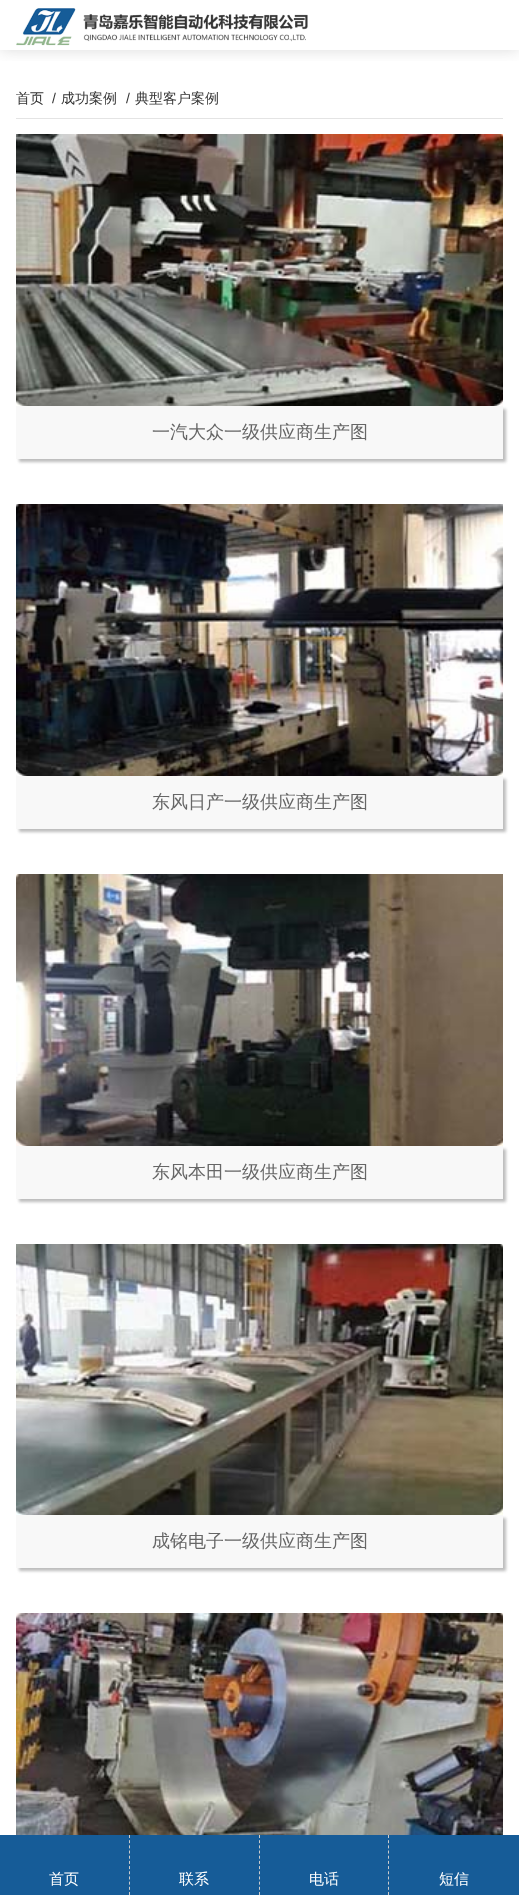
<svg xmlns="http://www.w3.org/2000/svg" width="519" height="1895">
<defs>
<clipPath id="clip1"><rect x="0" y="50" width="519" height="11"/></clipPath>
</defs>
<rect width="100%" height="100%" fill="#fff"/>
<g clip-path="url(#clip1)">
<rect width="519" height="50" fill="#8888884d" filter="blur(7.5px)"/>
</g>
<image x="16" y="8" width="292" height="38" href="media/1.png"/>
<rect x="16" y="118" width="487" height="1" fill="#e4e4e4"/>
<text x="16" y="103" style="font-family:WenQuanYi Zen Hei;font-size:14px;font-weight:500;fill:#333">首页</text>
<text x="52" y="103" style="font-family:Liberation Sans;font-size:14px;fill:#333">/</text>
<text x="61" y="103" style="font-family:WenQuanYi Zen Hei;font-size:14px;font-weight:500;fill:#333">成功案例</text>
<text x="126" y="103" style="font-family:Liberation Sans;font-size:14px;fill:#333">/</text>
<text x="135" y="103" style="font-family:WenQuanYi Zen Hei;font-size:14px;font-weight:500;fill:#333">典型客户案例</text>
<image x="16" y="134" width="487" height="272" href="media/2.png"/>
<rect x="19" y="409" width="487" height="53" fill="#999999a6" filter="blur(1.5px)"/>
<rect x="16" y="406" width="487" height="53" fill="#f8f8f8"/>
<text x="152" y="438" style="font-family:WenQuanYi Zen Hei;font-size:18px;font-weight:500;fill:#666">一汽大众一级供应商生产图</text>
<image x="16" y="504" width="487" height="272" href="media/3.png"/>
<rect x="19" y="779" width="487" height="53" fill="#999999a6" filter="blur(1.5px)"/>
<rect x="16" y="776" width="487" height="53" fill="#f8f8f8"/>
<text x="152" y="808" style="font-family:WenQuanYi Zen Hei;font-size:18px;font-weight:500;fill:#666">东风日产一级供应商生产图</text>
<image x="16" y="874" width="487" height="272" href="media/4.png"/>
<rect x="19" y="1149" width="487" height="53" fill="#999999a6" filter="blur(1.5px)"/>
<rect x="16" y="1146" width="487" height="53" fill="#f8f8f8"/>
<text x="152" y="1178" style="font-family:WenQuanYi Zen Hei;font-size:18px;font-weight:500;fill:#666">东风本田一级供应商生产图</text>
<image x="16" y="1244" width="487" height="271" href="media/5.png"/>
<rect x="19" y="1518" width="487" height="53" fill="#999999a6" filter="blur(1.5px)"/>
<rect x="16" y="1515" width="487" height="53" fill="#f8f8f8"/>
<text x="152" y="1547" style="font-family:WenQuanYi Zen Hei;font-size:18px;font-weight:500;fill:#666">成铭电子一级供应商生产图</text>
<image x="16" y="1613" width="487" height="222" href="media/6.png"/>
<rect y="1835" width="519" height="60" fill="#165c98"/>
<path d="M129.5 1835v60" fill="none" stroke="#ccc" stroke-dasharray="3 2.18"/>
<text x="49" y="1884" style="font-family:WenQuanYi Zen Hei;font-size:15px;font-weight:500;fill:#fff">首页</text>
<path d="M259.5 1835v60" fill="none" stroke="#ccc" stroke-dasharray="3 2.18"/>
<text x="179" y="1884" style="font-family:WenQuanYi Zen Hei;font-size:15px;font-weight:500;fill:#fff">联系</text>
<path d="M388.5 1835v60" fill="none" stroke="#ccc" stroke-dasharray="3 2.18"/>
<text x="309" y="1884" style="font-family:WenQuanYi Zen Hei;font-size:15px;font-weight:500;fill:#fff">电话</text>
<text x="439" y="1884" style="font-family:WenQuanYi Zen Hei;font-size:15px;font-weight:500;fill:#fff">短信</text>
</svg>
